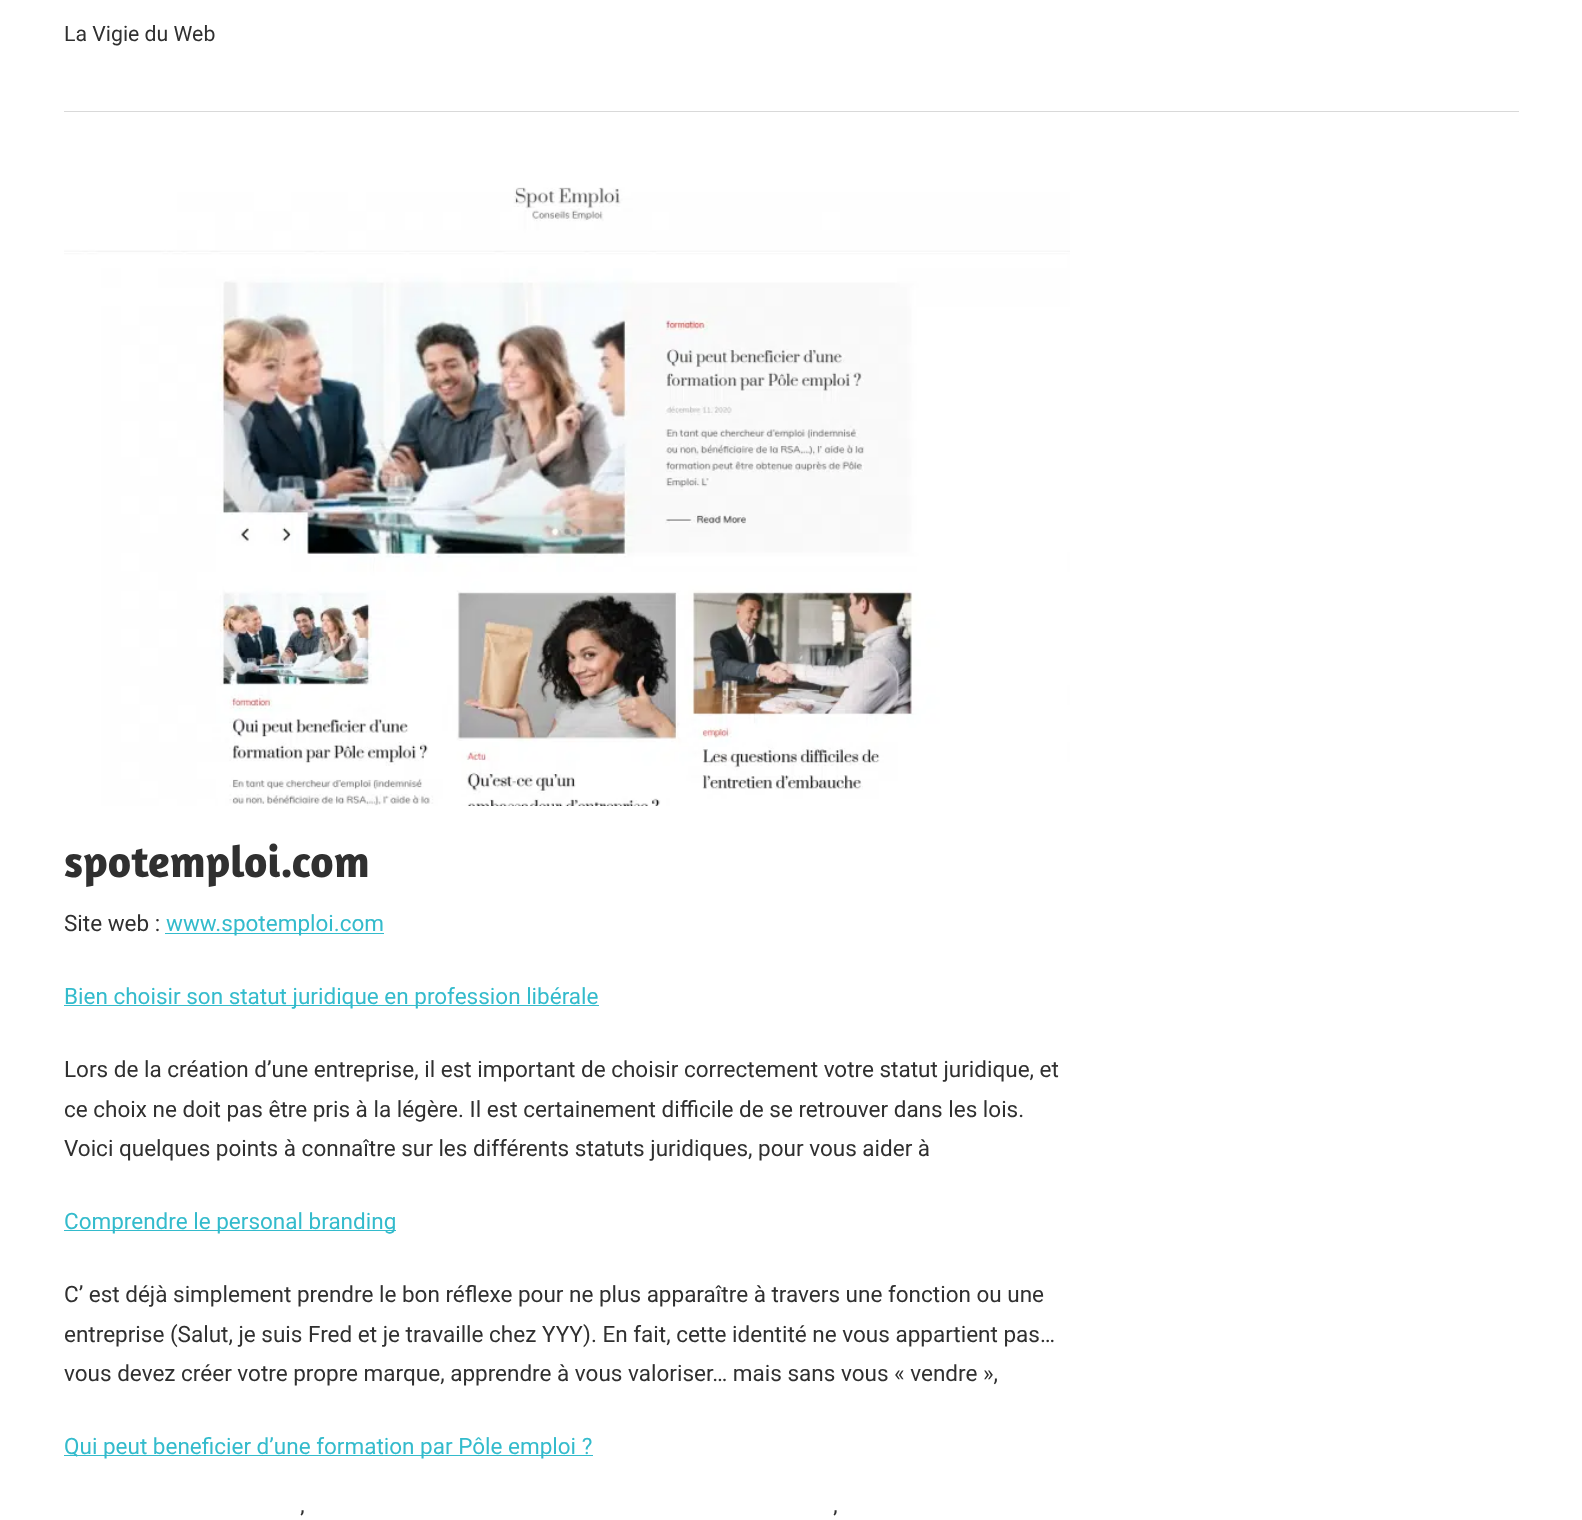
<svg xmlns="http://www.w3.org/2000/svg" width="1582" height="1520">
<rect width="100%" height="100%" fill="#fff"/>
<text x="64" y="41" style="font-family:Roboto;font-size:21.25px;fill:#303030">La Vigie du Web</text>
<rect x="64" y="111" width="1455" height="1" fill="#d9d9d9"/>
<image x="64" y="187" width="1006" height="619" href="media/1.png"/>
<text x="64" y="877" style="font-family:Amaranth;font-size:45px;font-weight:bold;fill:#303030">spotemploi.com</text>
<text x="64" y="931" style="font-family:Roboto;font-size:22.5px;fill:#303030">Site web :</text>
<rect x="165" y="933" width="219" height="1" fill="#3bc"/>
<text x="166" y="931" style="font-family:Roboto;font-size:22.5px;fill:#3bc">www.spotemploi.com</text>
<rect x="64" y="1005" width="535" height="1" fill="#3bc"/>
<text x="64" y="1004" style="font-family:Roboto;font-size:22.5px;fill:#3bc">Bien choisir son statut juridique en profession libérale</text>
<text x="64" y="1077" style="font-family:Roboto;font-size:22.5px;fill:#303030">Lors de la création d’une entreprise, il est important de choisir correctement votre statut juridique, et</text>
<text x="64" y="1117" style="font-family:Roboto;font-size:22.5px;fill:#303030">ce choix ne doit pas être pris à la légère. Il est certainement difficile de se retrouver dans les lois.</text>
<text x="64" y="1156" style="font-family:Roboto;font-size:22.5px;fill:#303030">Voici quelques points à connaître sur les différents statuts juridiques, pour vous aider à</text>
<rect x="64" y="1230" width="332" height="1" fill="#3bc"/>
<text x="64" y="1229" style="font-family:Roboto;font-size:22.5px;fill:#3bc">Comprendre le personal branding</text>
<text x="64" y="1302" style="font-family:Roboto;font-size:22.5px;fill:#303030">C’ est déjà simplement prendre le bon réflexe pour ne plus apparaître à travers une fonction ou une</text>
<text x="64" y="1342" style="font-family:Roboto;font-size:22.5px;fill:#303030">entreprise (Salut, je suis Fred et je travaille chez YYY). En fait, cette identité ne vous appartient pas…</text>
<text x="64" y="1381" style="font-family:Roboto;font-size:22.5px;fill:#303030">vous devez créer votre propre marque, apprendre à vous valoriser… mais sans vous « vendre »,</text>
<rect x="64" y="1455" width="529" height="1" fill="#3bc"/>
<text x="64" y="1454" style="font-family:Roboto;font-size:22.5px;fill:#3bc">Qui peut beneficier d’une formation par Pôle emploi ?</text>
<text x="300" y="1527" style="font-family:Roboto;font-size:22.5px;fill:#303030">’</text>
<text x="833" y="1527" style="font-family:Roboto;font-size:22.5px;fill:#303030">’</text>
</svg>
